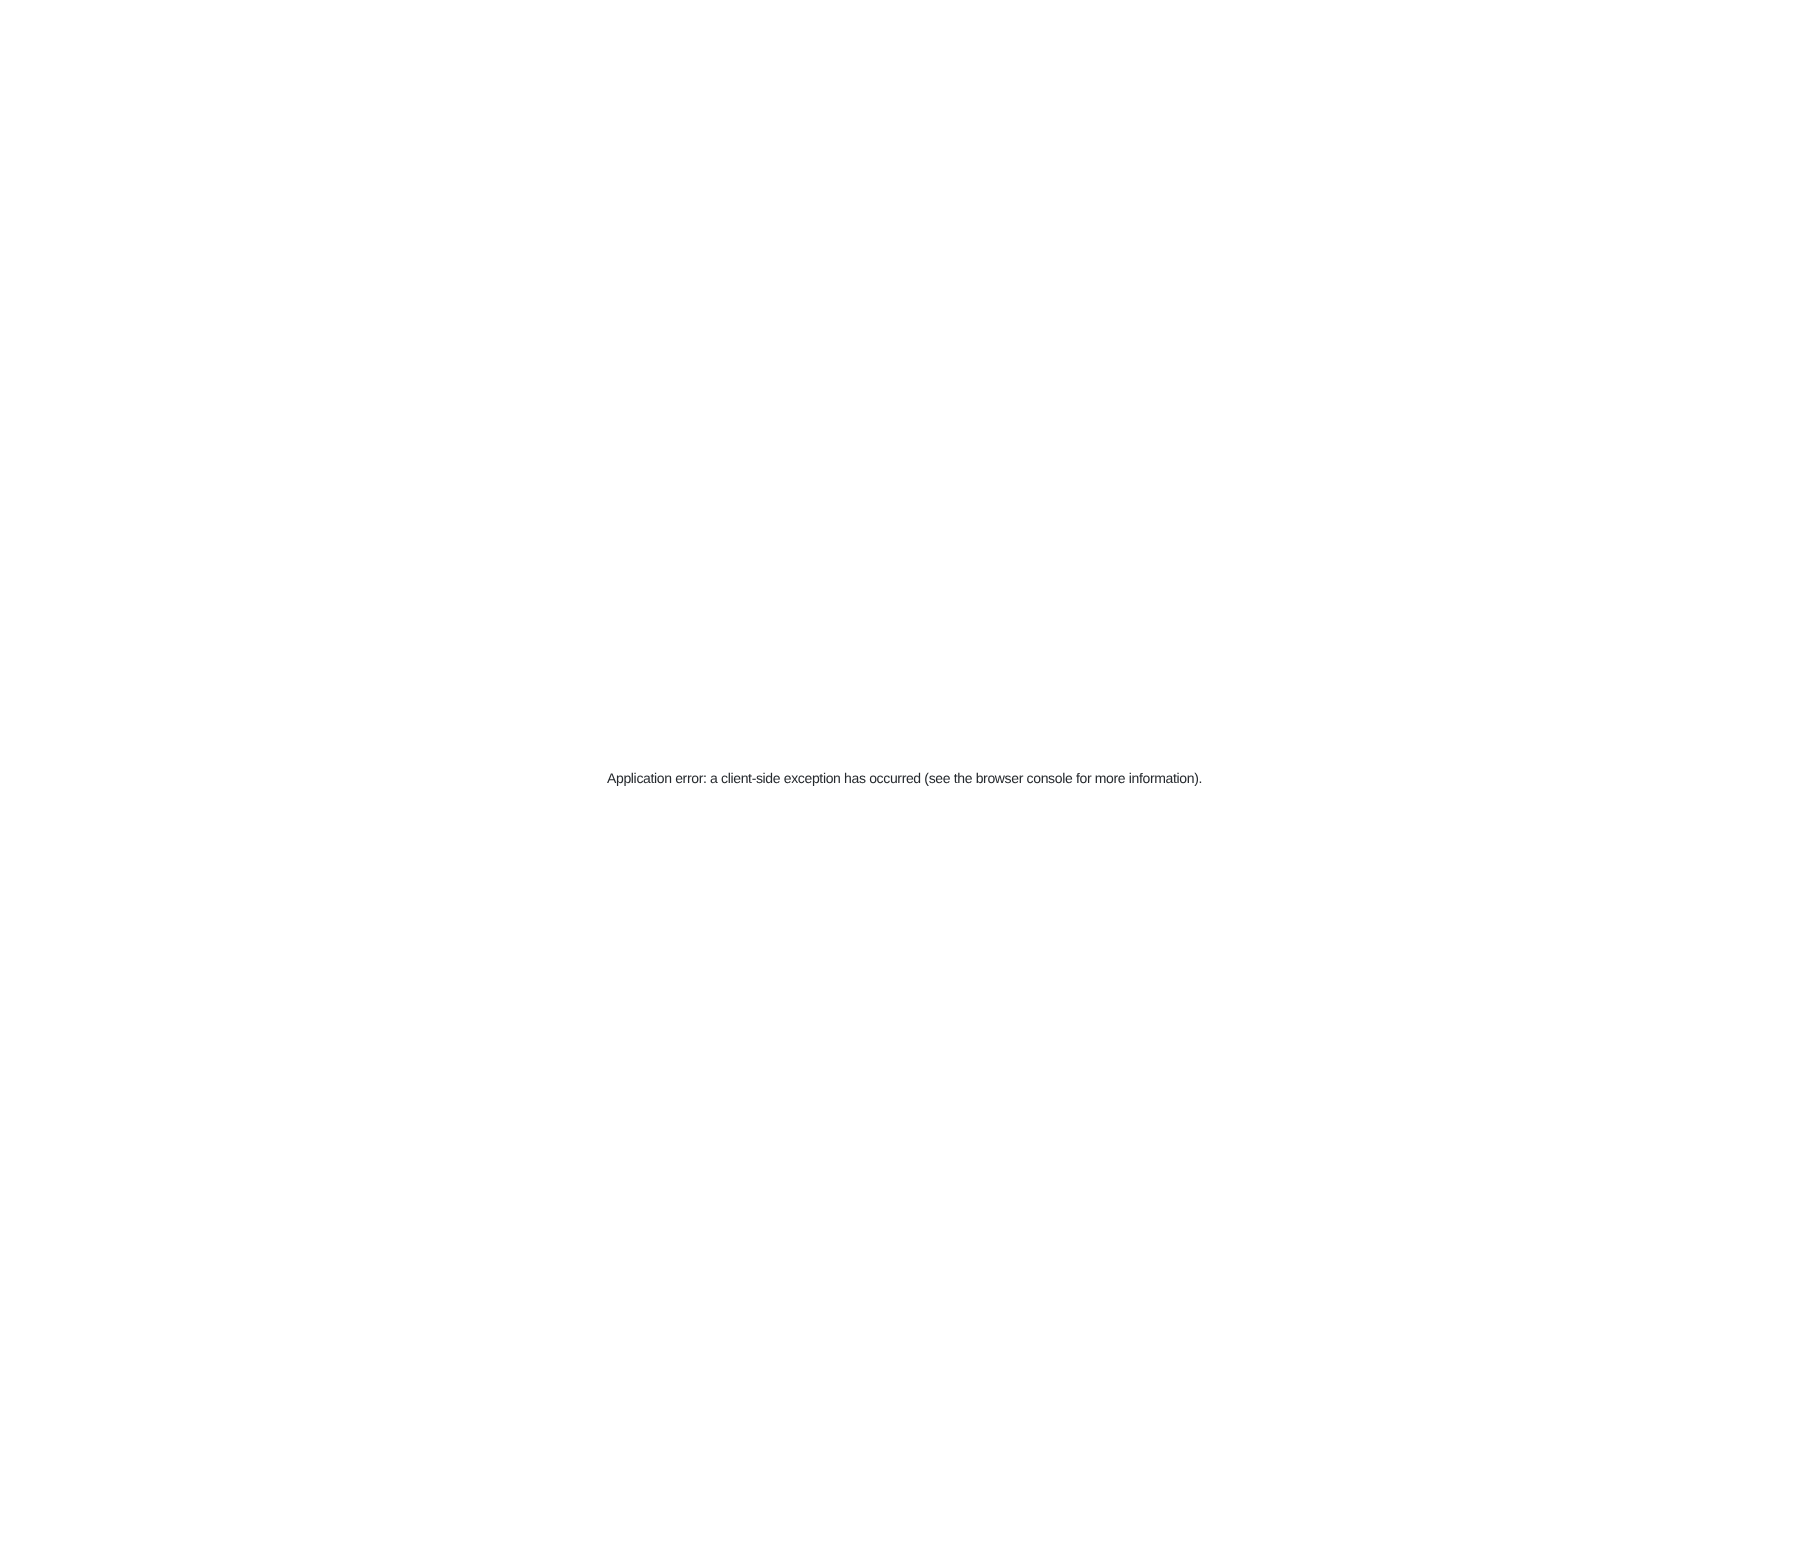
<svg xmlns="http://www.w3.org/2000/svg" width="1809" height="1555">
<rect width="100%" height="100%" fill="#fff"/>
<text x="607" y="783" style="font-family:Liberation Sans;font-size:14px;letter-spacing:-0.35px;fill:#25292d">Application error: a client-side exception has occurred (see the browser console for more information).</text>
</svg>
